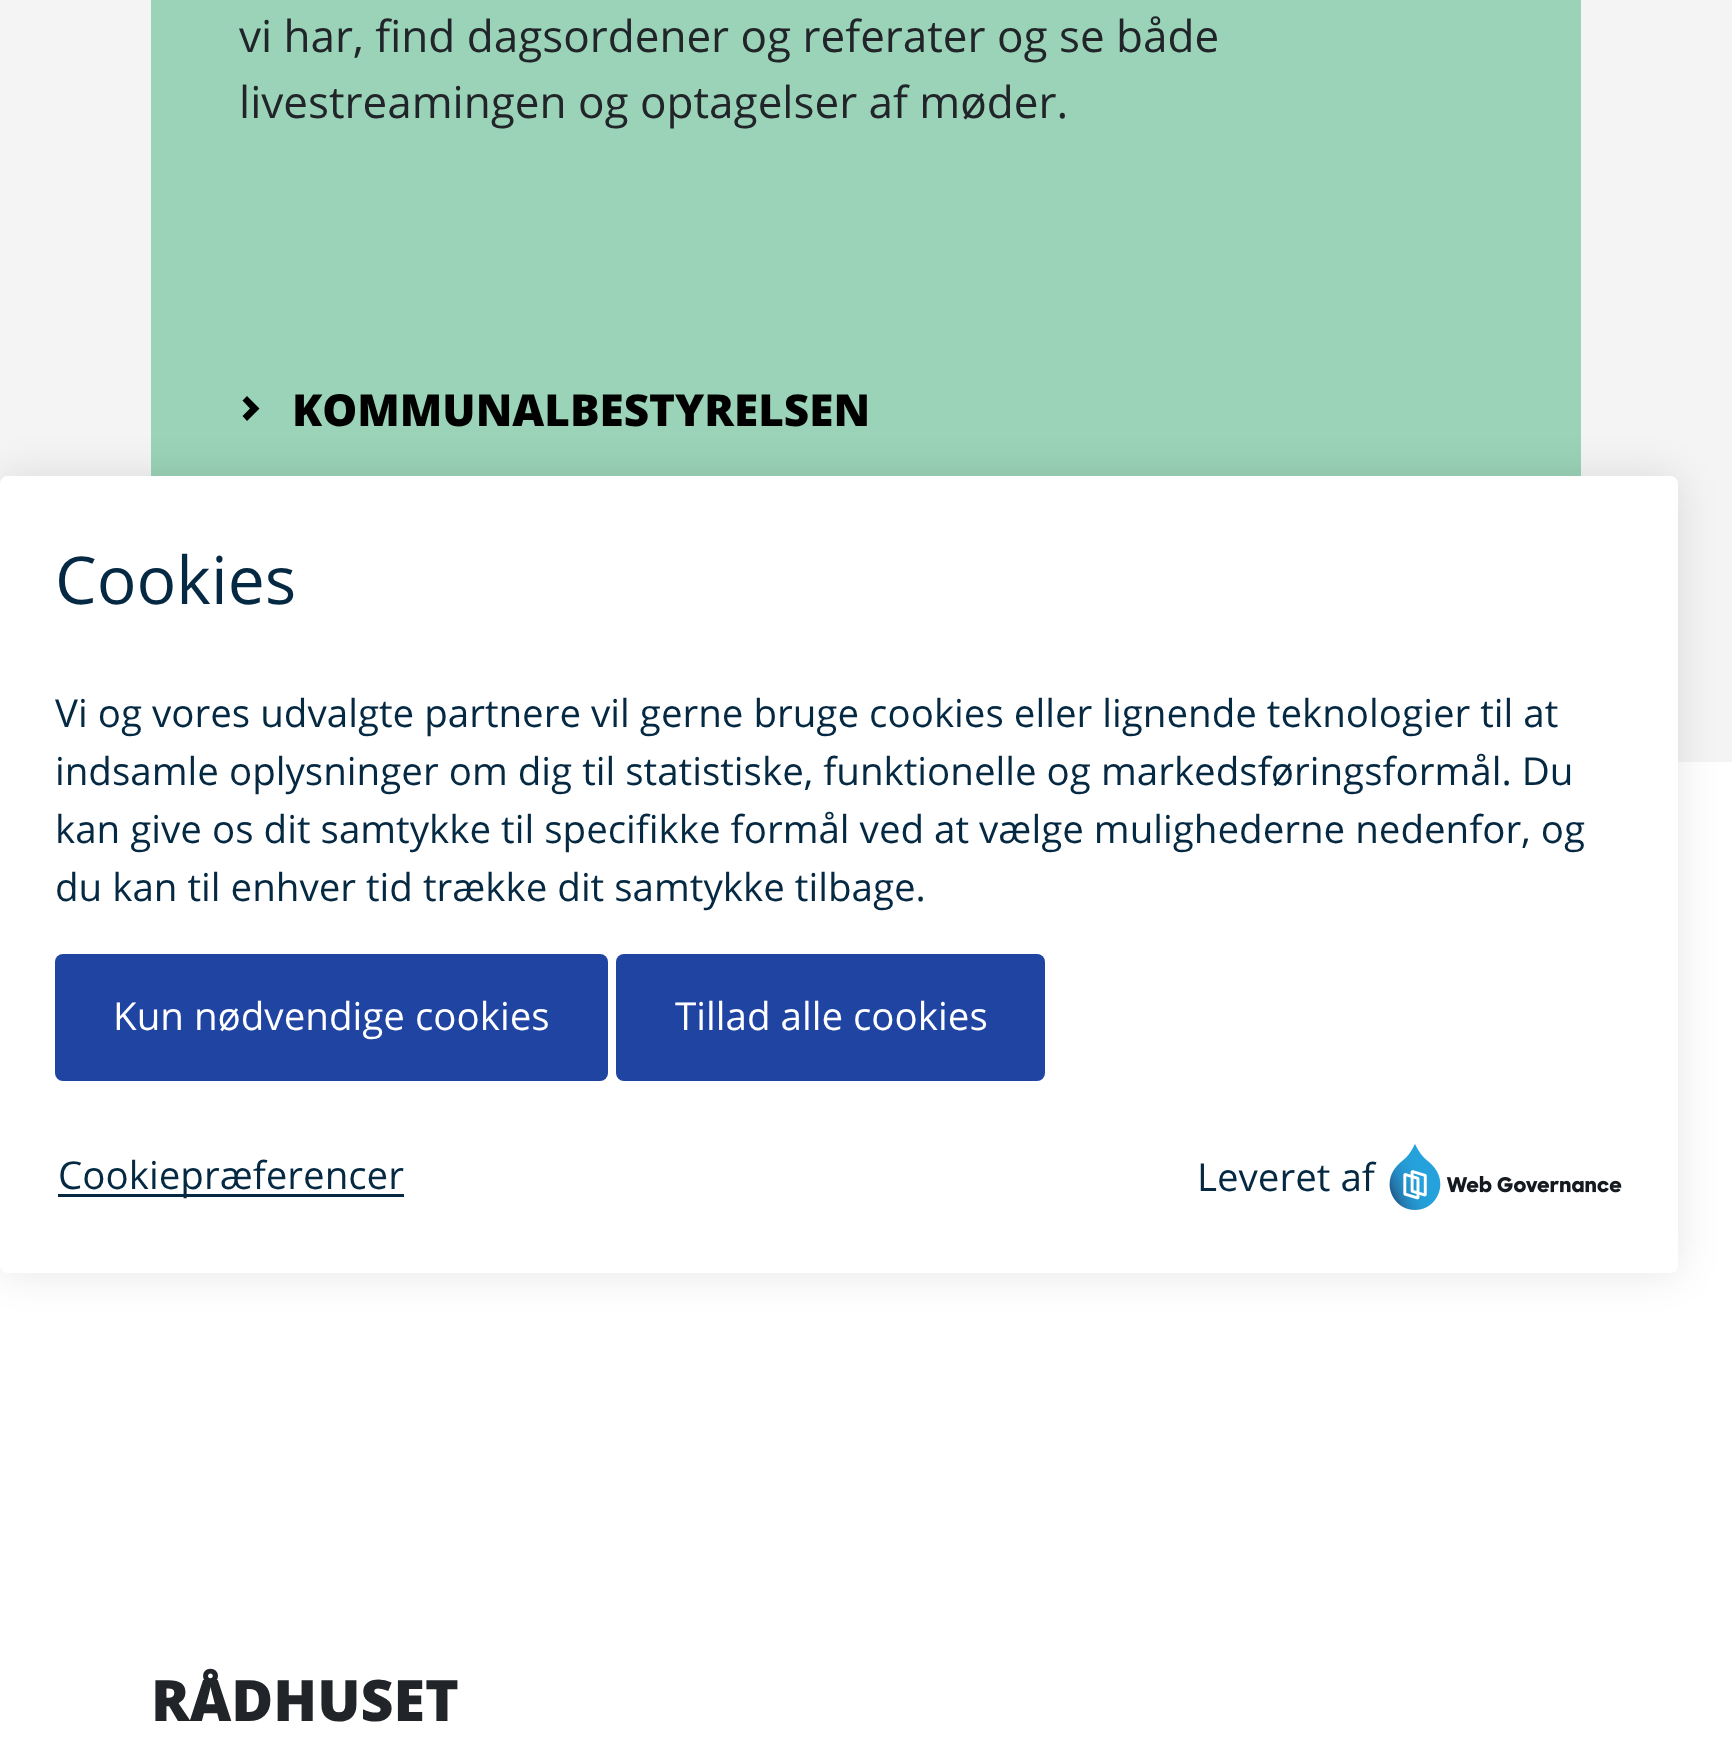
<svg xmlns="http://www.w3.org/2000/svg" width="1732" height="1746">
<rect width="100%" height="100%" fill="#f4f4f4"/>
<rect x="151" width="1430" height="476" fill="#9ad3b7"/>
<text x="239" y="52" style="font-family:Open Sans;font-size:44px;fill:#212529">vi har, find dagsordener og referater og se både</text>
<text x="239" y="118" style="font-family:Open Sans;font-size:44px;fill:#212529">livestreamingen og optagelser af møder.</text>
<text x="292" y="426" style="font-family:Open Sans;font-size:44px;font-weight:800;fill:#000">KOMMUNALBESTYRELSEN</text>
<path d="M247 396l-4.5 4.5l7.5 8l-7.5 7.5l4.5 5l12.5-12.5z" fill="#000"/>
<rect x="1678" y="762" width="54" height="377" fill="#fff"/>
<rect y="1139" width="1732" height="607" fill="#fff"/>
<rect y="476" width="1678" height="797" rx="8" fill="#0000001a" filter="blur(20.5px)"/>
<rect y="476" width="1678" height="797" rx="8" fill="#fff"/>
<text x="55" y="604" style="font-family:Open Sans;font-size:66px;fill:#052942">Cookies</text>
<text x="55" y="727" style="font-family:Open Sans;font-size:38.5px;fill:#052942">Vi og vores udvalgte partnere vil gerne bruge cookies eller lignende teknologier til at</text>
<text x="55" y="785" style="font-family:Open Sans;font-size:38.5px;fill:#052942">indsamle oplysninger om dig til statistiske, funktionelle og markedsføringsformål. Du</text>
<text x="55" y="843" style="font-family:Open Sans;font-size:38.5px;fill:#052942">kan give os dit samtykke til specifikke formål ved at vælge mulighederne nedenfor, og</text>
<text x="55" y="901" style="font-family:Open Sans;font-size:38.5px;fill:#052942">du kan til enhver tid trække dit samtykke tilbage.</text>
<rect x="55" y="954" width="553" height="127" rx="8" fill="#2044a2"/>
<text x="113" y="1030" style="font-family:Open Sans;font-size:38.5px;fill:#fff">Kun nødvendige cookies</text>
<rect x="616" y="954" width="429" height="127" rx="8" fill="#2044a2"/>
<text x="675" y="1030" style="font-family:Open Sans;font-size:38.5px;fill:#fff">Tillad alle cookies</text>
<rect x="58" y="1194" width="346" height="3" fill="#052942"/>
<text x="58" y="1189" style="font-family:Open Sans;font-size:38.5px;fill:#052942">Cookiepræferencer</text>
<text x="1197" y="1191" style="font-family:Open Sans;font-size:38.5px;fill:#052942">Leveret af</text>
<image x="1389" y="1144" width="233" height="66" href="media/1.png"/>
<text x="151" y="1721" style="font-family:Open Sans;font-size:57.25px;font-weight:800;fill:#212529">RÅDHUSET</text>
</svg>
